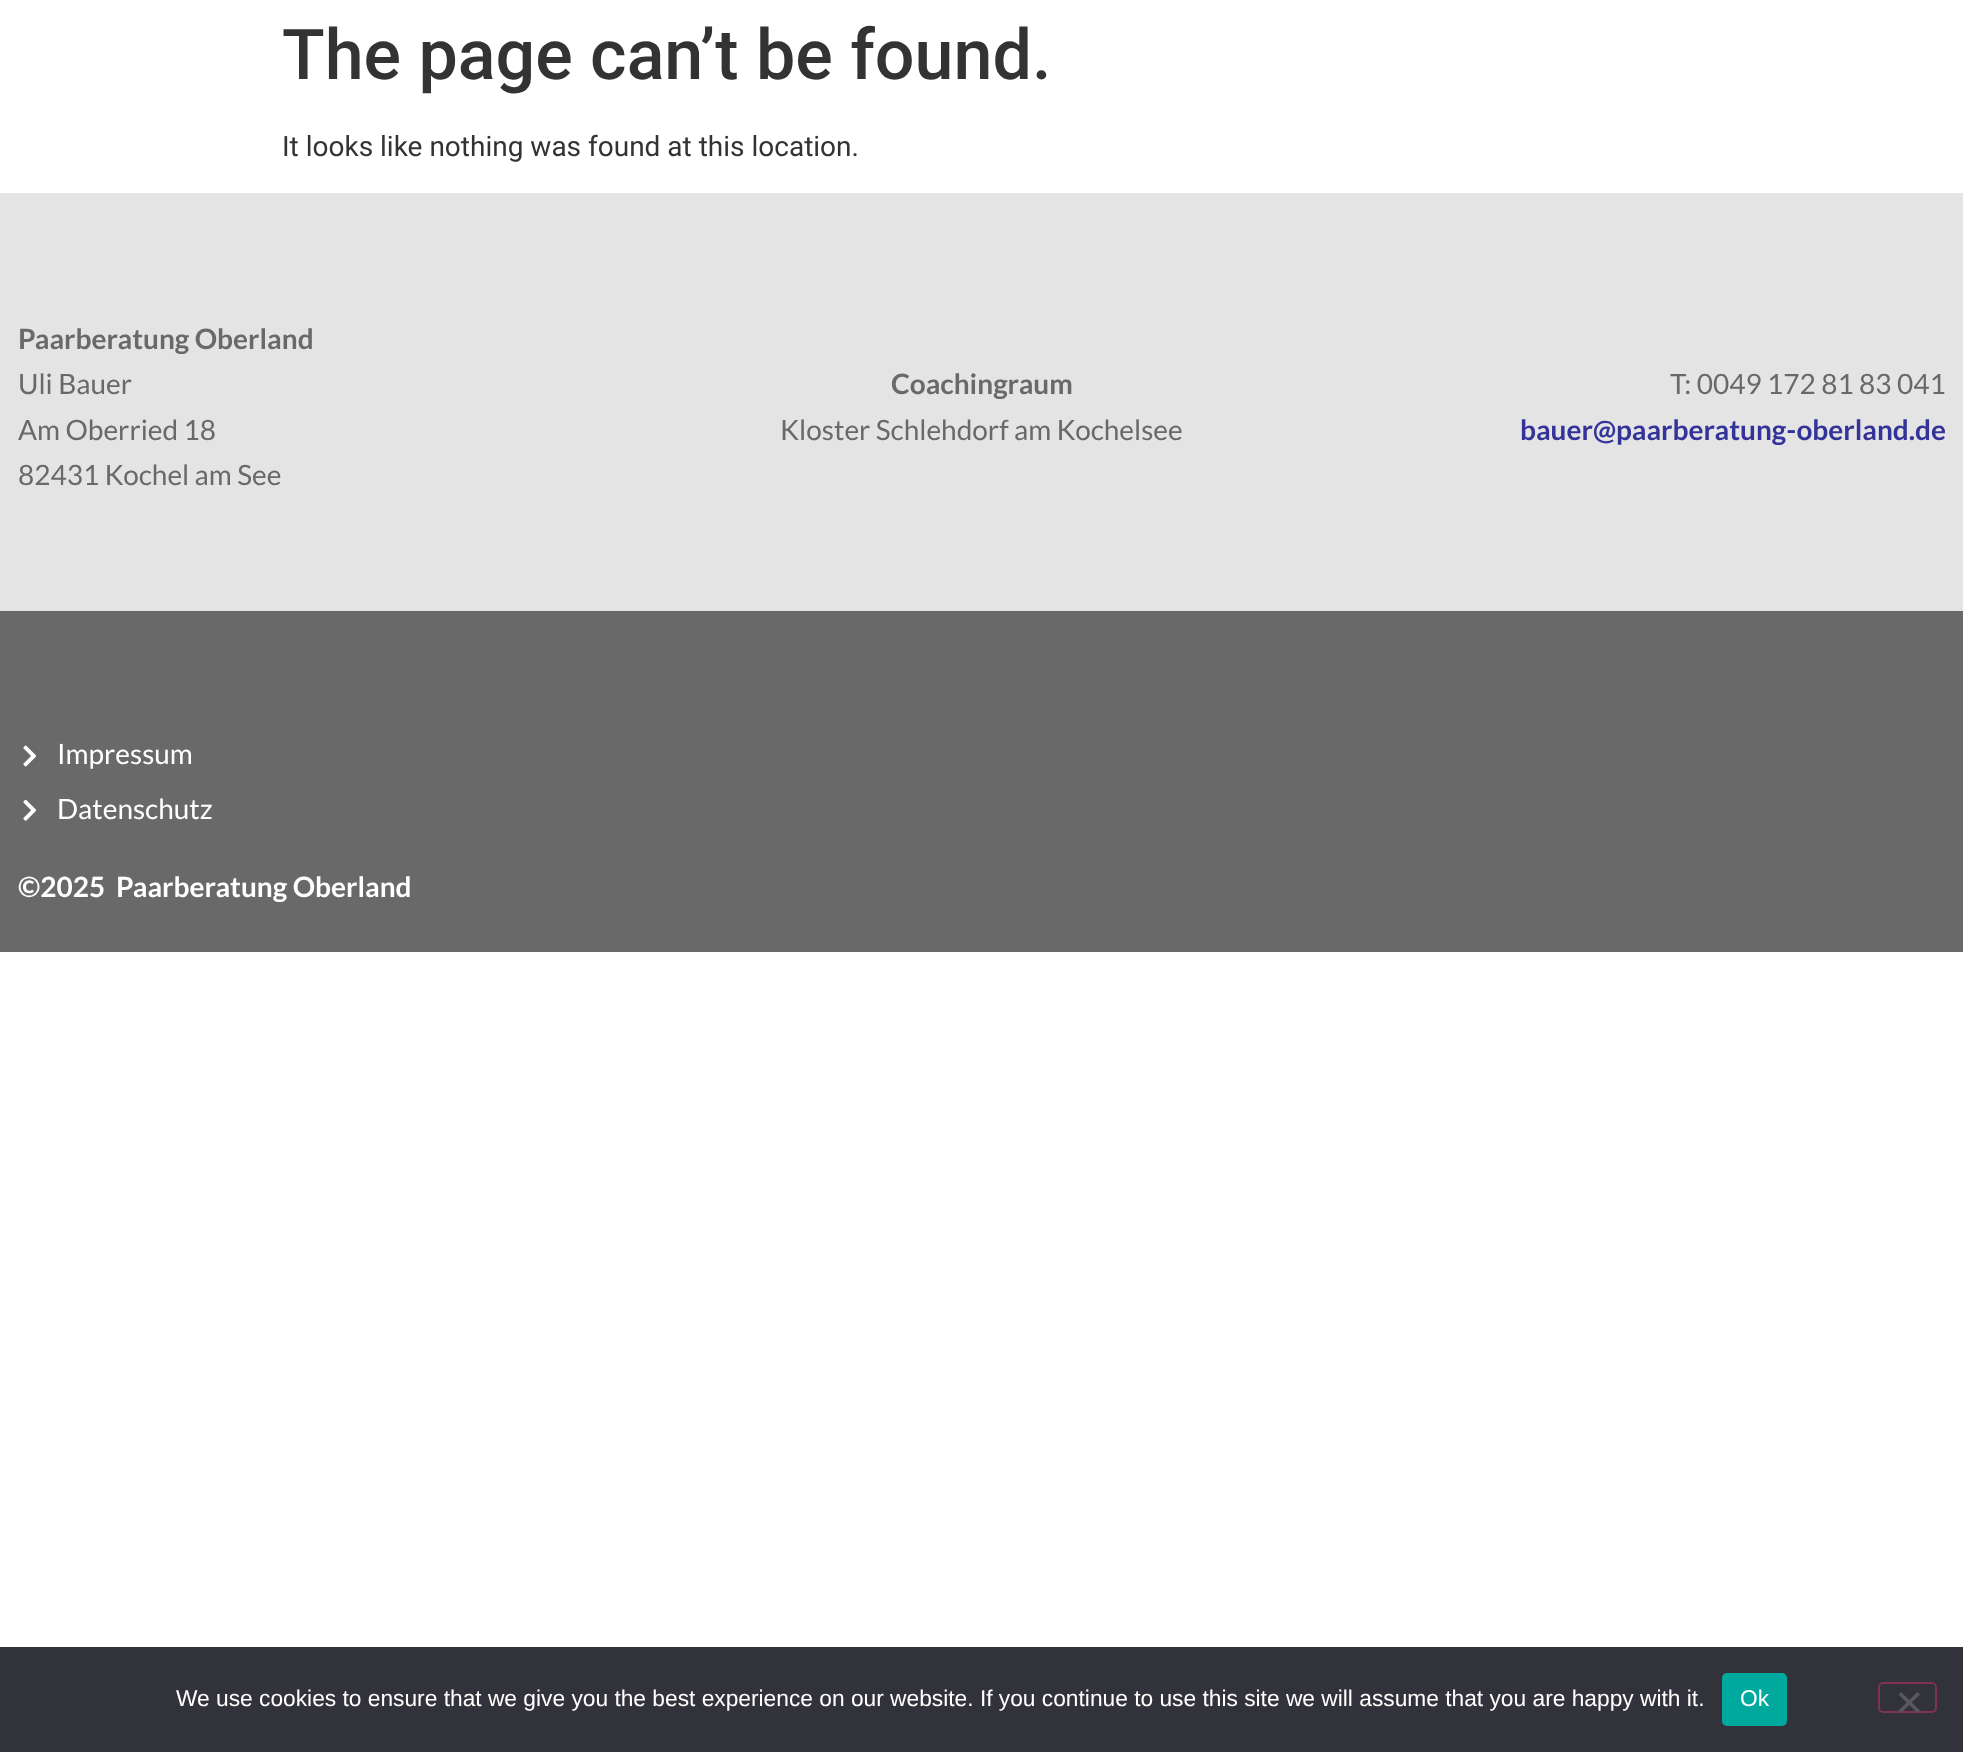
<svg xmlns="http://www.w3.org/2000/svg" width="1963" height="1752">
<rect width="100%" height="100%" fill="#fff"/>
<text x="282" y="79" style="font-family:Roboto;font-size:70px;font-weight:500;fill:#333">The page can’t be found.</text>
<text x="282" y="156" style="font-family:Roboto;font-size:28px;fill:#333">It looks like nothing was found at this location.</text>
<rect y="193" width="1963" height="418" fill="#e4e4e4"/>
<text x="18" y="349" style="font-family:Lato;font-size:28px;font-weight:bold;fill:#696969">Paarberatung Oberland</text>
<text x="18" y="394" style="font-family:Lato;font-size:28px;fill:#696969">Uli Bauer</text>
<text x="18" y="440" style="font-family:Lato;font-size:28px;fill:#696969">Am Oberried 18</text>
<text x="18" y="485" style="font-family:Lato;font-size:28px;fill:#696969">82431 Kochel am See</text>
<text x="891" y="394" style="font-family:Lato;font-size:28px;font-weight:bold;fill:#696969">Coachingraum</text>
<text x="780" y="440" style="font-family:Lato;font-size:28px;fill:#696969">Kloster Schlehdorf am Kochelsee</text>
<text x="1670" y="394" style="font-family:Lato;font-size:28px;fill:#696969">T: 0049 172 81 83 041</text>
<text x="1520" y="440" style="font-family:Lato;font-size:28px;font-weight:bold;fill:#339">bauer@paarberatung-oberland.de</text>
<rect y="611" width="1963" height="341" fill="#696969"/>
<image x="23" y="745" width="13" height="22" href="media/1.png"/>
<text x="57" y="764" style="font-family:Lato;font-size:28px;fill:#fff">Impressum</text>
<image x="23" y="799" width="14" height="22" href="media/2.png"/>
<text x="57" y="819" style="font-family:Lato;font-size:28px;fill:#fff">Datenschutz</text>
<text x="18" y="897" style="font-family:Lato;font-size:28px;font-weight:bold;fill:#fff" xml:space="preserve">©2025  Paarberatung Oberland</text>
<rect y="1647" width="1963" height="105" fill="#32323a"/>
<text x="176" y="1706" style="font-family:Liberation Sans;font-size:22.75px;fill:#fff">We use cookies to ensure that we give you the best experience on our website. If you continue to use this site we will assume that you are happy with it.</text>
<rect x="1722" y="1673" width="65" height="53" rx="5" fill="#00a99d"/>
<text x="1740" y="1706" style="font-family:Liberation Sans;font-size:22.75px;fill:#fff">Ok</text>
<rect x="1879" y="1683" width="57" height="29" rx="4" fill="none" stroke="#7f3350" stroke-width="2"/>
<path d="M1917.5 1692l2.5 2.5l-19 18.5l-2.5-2.5z" fill="#59595d"/>
<path d="M1898.5 1694.5l2.5-2.5l19 18.5l-2.5 2.5z" fill="#59595d"/>
</svg>
